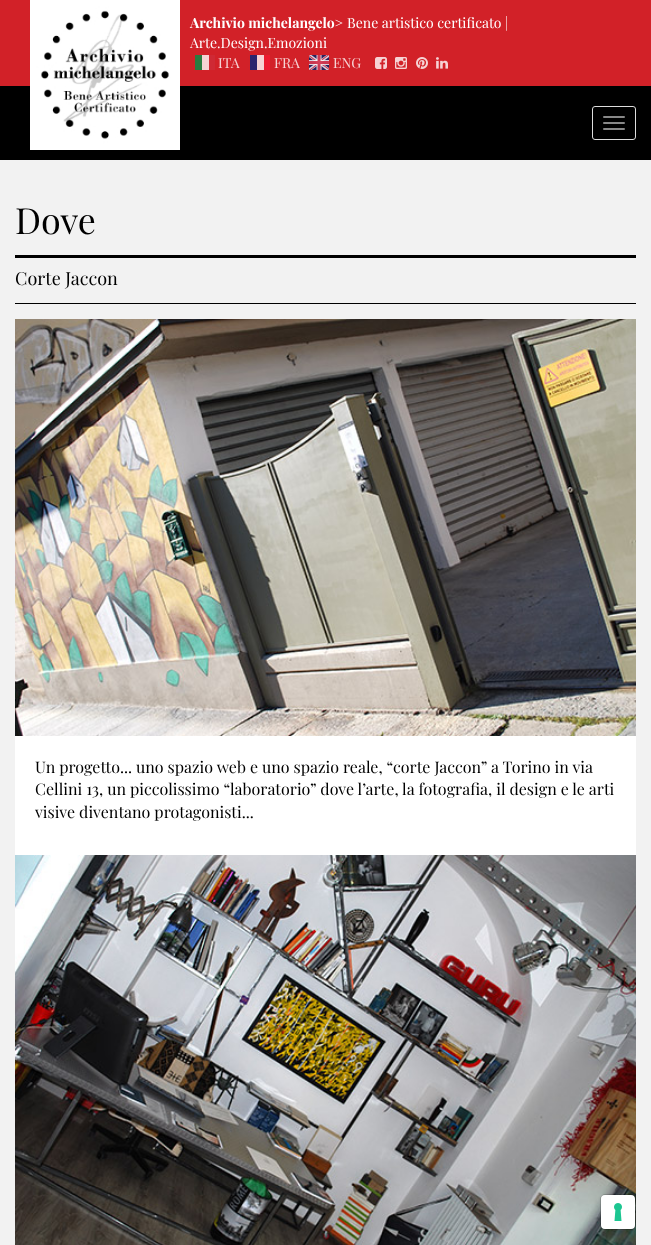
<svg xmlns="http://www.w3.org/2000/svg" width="651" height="1245">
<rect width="100%" height="100%" fill="#f2f2f2"/>
<rect width="651" height="86" fill="#d22128"/>
<rect y="86" width="651" height="74" fill="#000"/>
<image x="30" y="0" width="150" height="150" href="media/1.png"/>
<text x="190" y="28" style="font-family:Playfair Display;font-size:14px;font-weight:bold;fill:#fff">Archivio michelangelo&gt;</text>
<text x="347" y="28" style="font-family:Playfair Display;font-size:14px;fill:#fff">Bene artistico certificato |</text>
<text x="190" y="48" style="font-family:Playfair Display;font-size:14px;fill:#fff">Arte.Design.Emozioni</text>
<text x="218" y="68" style="font-family:Playfair Display;font-size:14px;fill:#f6d3d4">ITA</text>
<rect x="202" y="55" width="7" height="15" fill="#f6d3d4"/>
<rect x="195" y="55" width="7" height="15" fill="#2a7b40"/>
<rect x="209" y="55" width="6" height="15" fill="#cf2934"/>
<text x="274" y="68" style="font-family:Playfair Display;font-size:14px;fill:#f6d3d4">FRA</text>
<rect x="257" y="55" width="7" height="15" fill="#f6d3d4"/>
<rect x="250" y="55" width="7" height="15" fill="#2a256e"/>
<rect x="264" y="55" width="6" height="15" fill="#ec1a2e"/>
<image x="309" y="55" width="20" height="15" href="media/2.png"/>
<text x="333" y="68" style="font-family:Playfair Display;font-size:14px;fill:#f6d3d4">ENG</text>
<image x="375" y="57" width="12" height="12" href="media/3.png"/>
<image x="395" y="57" width="12" height="12" href="media/4.png"/>
<image x="416" y="57" width="12" height="12" href="media/5.png"/>
<image x="436" y="57" width="12" height="12" href="media/6.png"/>
<rect x="592.5" y="106.5" width="43" height="33" rx="2.5" fill="none" stroke="#ddd"/>
<rect x="603" y="116" width="22" height="2" rx="1" fill="#888"/>
<rect x="603" y="122" width="22" height="2" rx="1" fill="#888"/>
<rect x="603" y="128" width="22" height="2" rx="1" fill="#888"/>
<rect x="15" y="255" width="621" height="3" fill="#000"/>
<text x="15" y="234" style="font-family:Playfair Display;font-size:36px;fill:#000">Dove</text>
<text x="15" y="285" style="font-family:Playfair Display;font-size:18px;fill:#000">Corte Jaccon</text>
<rect x="15" y="303" width="621" height="1" fill="#000"/>
<image x="15" y="319" width="621" height="417" href="media/7.png"/>
<rect x="15" y="736" width="621" height="119" fill="#fff"/>
<text x="35" y="773" style="font-family:Playfair Display;font-size:16px;fill:#000">Un progetto... uno spazio web e uno spazio reale, “corte Jaccon” a Torino in via</text>
<text x="35" y="795" style="font-family:Playfair Display;font-size:16px;fill:#000">Cellini 13, un piccolissimo “laboratorio” dove l’arte, la fotografia, il design e le arti</text>
<text x="35" y="818" style="font-family:Playfair Display;font-size:16px;fill:#000">visive diventano protagonisti...</text>
<image x="15" y="855" width="621" height="390" href="media/8.png"/>
<rect x="600.5" y="1194.5" width="35" height="35" rx="4.5" fill="none" stroke="#00000026"/>
<rect x="601" y="1195" width="34" height="34" rx="4" fill="#fff"/>
<image x="614" y="1203" width="8" height="18" href="media/9.png"/>
</svg>
